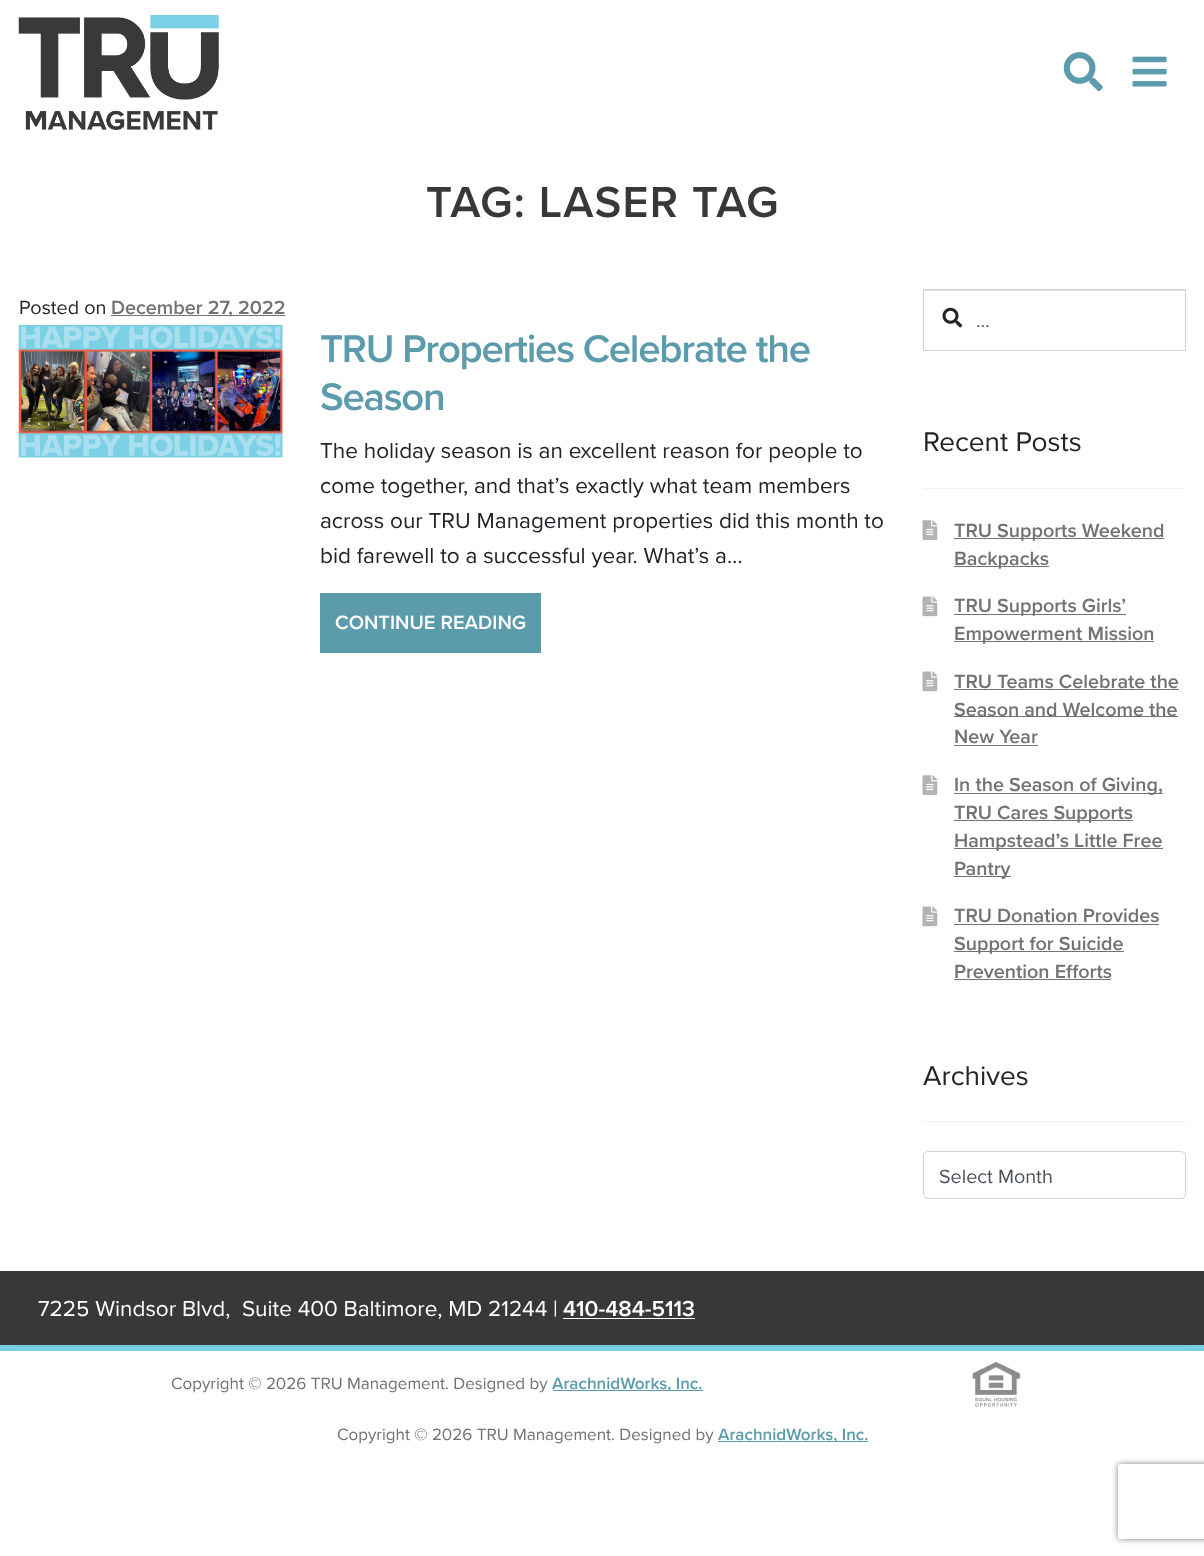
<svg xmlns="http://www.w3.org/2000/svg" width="1204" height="1556">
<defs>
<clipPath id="clip1"><path d="M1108 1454h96v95h-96zm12.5 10h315c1.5 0 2.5 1 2.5 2.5v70c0 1.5-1 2.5-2.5 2.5h-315c-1.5 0-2.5-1-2.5-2.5v-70c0-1.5 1-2.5 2.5-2.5z" clip-rule="evenodd"/></clipPath>
</defs>
<rect width="100%" height="100%" fill="#fff"/>
<image x="18" y="15" width="201" height="115" href="media/1.png"/>
<image x="1063" y="52" width="40" height="40" href="media/2.png"/>
<image x="1132" y="56" width="35" height="31" href="media/3.png"/>
<text x="426" y="217" style="font-family:Proxima Nova;font-size:45px;font-weight:600;letter-spacing:1.25px;fill:#383838">TAG: LASER TAG</text>
<text x="19" y="314" style="font-family:Proxima Nova;font-size:19.75px;fill:#212529">Posted on</text>
<rect x="111" y="315" width="174" height="1" fill="#727272"/>
<text x="111" y="314" style="font-family:Proxima Nova;font-size:19.75px;font-weight:600;fill:#727272">December 27, 2022</text>
<image x="18" y="325" width="265" height="133" href="media/4.png"/>
<text x="320" y="362" style="font-family:Proxima Nova;font-size:40px;font-weight:600;letter-spacing:-1.25px;fill:#5b9bac">TRU Properties Celebrate the</text>
<text x="320" y="410" style="font-family:Proxima Nova;font-size:40px;font-weight:600;letter-spacing:-1.25px;fill:#5b9bac">Season</text>
<text x="320" y="458" style="font-family:Proxima Nova;font-size:22.5px;fill:#212529">The holiday season is an excellent reason for people to</text>
<text x="320" y="493" style="font-family:Proxima Nova;font-size:22.5px;fill:#212529">come together, and that’s exactly what team members</text>
<text x="320" y="528" style="font-family:Proxima Nova;font-size:22.5px;fill:#212529">across our TRU Management properties did this month to</text>
<text x="320" y="563" style="font-family:Proxima Nova;font-size:22.5px;fill:#212529">bid farewell to a successful year. What’s a…</text>
<rect x="320" y="593" width="221" height="60" fill="#5b9bac"/>
<text x="335" y="629" style="font-family:Proxima Nova;font-size:20px;font-weight:600;fill:#fff">CONTINUE READING</text>
<rect x="924" y="290" width="261" height="1" fill="#dfdfdf"/>
<rect x="923.5" y="289.5" width="262" height="61" fill="none" stroke="#ced4da"/>
<image x="942" y="307" width="21" height="21" href="media/5.png"/>
<text x="976" y="327" style="font-family:Proxima Nova;font-size:20px;fill:#616161">…</text>
<rect x="923" y="488" width="263" height="1" fill="#f2f2f2"/>
<text x="923" y="451" style="font-family:Proxima Nova;font-size:28px;fill:#212529">Recent Posts</text>
<image x="922" y="520" width="16" height="20" href="media/6.png"/>
<rect x="954" y="538" width="210" height="1" fill="#727272"/>
<text x="954" y="537" style="font-family:Proxima Nova;font-size:19.75px;font-weight:600;fill:#727272">TRU Supports Weekend</text>
<rect x="954" y="566" width="95" height="1" fill="#727272"/>
<text x="954" y="565" style="font-family:Proxima Nova;font-size:19.75px;font-weight:600;fill:#727272">Backpacks</text>
<image x="922" y="596" width="16" height="21" href="media/7.png"/>
<rect x="954" y="614" width="172" height="1" fill="#727272"/>
<text x="954" y="612" style="font-family:Proxima Nova;font-size:19.75px;font-weight:600;fill:#727272">TRU Supports Girls’</text>
<rect x="954" y="641" width="200" height="1" fill="#727272"/>
<text x="954" y="640" style="font-family:Proxima Nova;font-size:19.75px;font-weight:600;fill:#727272">Empowerment Mission</text>
<image x="922" y="671" width="16" height="21" href="media/7.png"/>
<text x="954" y="688" style="font-family:Proxima Nova;font-size:19.75px;font-weight:600;fill:#727272">TRU Teams Celebrate the</text>
<rect x="954" y="689" width="225" height="1" fill="#727272"/>
<rect x="954" y="716" width="224" height="1" fill="#727272"/>
<text x="954" y="716" style="font-family:Proxima Nova;font-size:19.75px;font-weight:600;fill:#727272">Season and Welcome the</text>
<text x="954" y="743" style="font-family:Proxima Nova;font-size:19.75px;font-weight:600;fill:#727272">New Year</text>
<rect x="954" y="745" width="84" height="1" fill="#727272"/>
<image x="922" y="775" width="16" height="20" href="media/6.png"/>
<rect x="954" y="793" width="209" height="1" fill="#727272"/>
<text x="954" y="791" style="font-family:Proxima Nova;font-size:19.75px;font-weight:600;fill:#727272">In the Season of Giving,</text>
<rect x="954" y="820" width="179" height="1" fill="#727272"/>
<text x="954" y="819" style="font-family:Proxima Nova;font-size:19.75px;font-weight:600;fill:#727272">TRU Cares Supports</text>
<rect x="954" y="848" width="209" height="1" fill="#727272"/>
<text x="954" y="847" style="font-family:Proxima Nova;font-size:19.75px;font-weight:600;fill:#727272">Hampstead’s Little Free</text>
<rect x="954" y="876" width="57" height="1" fill="#727272"/>
<text x="954" y="875" style="font-family:Proxima Nova;font-size:19.75px;font-weight:600;fill:#727272">Pantry</text>
<image x="922" y="906" width="16" height="21" href="media/7.png"/>
<text x="954" y="922" style="font-family:Proxima Nova;font-size:19.75px;font-weight:600;fill:#727272">TRU Donation Provides</text>
<rect x="954" y="924" width="205" height="1" fill="#727272"/>
<rect x="954" y="951" width="170" height="1" fill="#727272"/>
<text x="954" y="950" style="font-family:Proxima Nova;font-size:19.75px;font-weight:600;fill:#727272">Support for Suicide</text>
<text x="954" y="978" style="font-family:Proxima Nova;font-size:19.75px;font-weight:600;fill:#727272">Prevention Efforts</text>
<rect x="954" y="979" width="157" height="1" fill="#727272"/>
<rect x="923" y="1121" width="263" height="1" fill="#f2f2f2"/>
<text x="923" y="1085" style="font-family:Proxima Nova;font-size:28px;fill:#212529">Archives</text>
<rect x="923.5" y="1151.5" width="262" height="47" rx="4.5" fill="none" stroke="#ced4da"/>
<text x="939" y="1183" style="font-family:Proxima Nova;font-size:19.75px;fill:#495057">Select Month</text>
<rect y="1271" width="1204" height="74" fill="#383838"/>
<rect y="1345" width="1204" height="6" fill="#7bcfe5"/>
<rect x="19" y="1346" width="1167" height="1" fill="#75c5da"/>
<text x="38" y="1316" style="font-family:Proxima Nova;font-size:22.5px;fill:#fff" xml:space="preserve">7225 Windsor Blvd,  Suite 400 Baltimore, MD 21244 |</text>
<text x="563" y="1316" style="font-family:Proxima Nova;font-size:22.5px;font-weight:600;fill:#fff">410-484-5113</text>
<rect x="563" y="1318" width="132" height="1" fill="#fff"/>
<text x="171" y="1389" style="font-family:Proxima Nova;font-size:17px;fill:#727272">Copyright © 2026 TRU Management. Designed by</text>
<rect x="553" y="1390" width="150" height="1" fill="#5b9bac"/>
<text x="552" y="1389" style="font-family:Proxima Nova;font-size:17px;font-weight:600;fill:#5b9bac">ArachnidWorks, Inc.</text>
<image x="972" y="1362" width="49" height="45" href="media/8.png"/>
<text x="337" y="1440" style="font-family:Proxima Nova;font-size:17px;fill:#727272">Copyright © 2026 TRU Management. Designed by</text>
<rect x="718" y="1441" width="150" height="1" fill="#5b9bac"/>
<text x="718" y="1440" style="font-family:Proxima Nova;font-size:17px;font-weight:600;fill:#5b9bac">ArachnidWorks, Inc.</text>
<g clip-path="url(#clip1)">
<rect x="1118" y="1464" width="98" height="75" rx="2.5" fill="#808080" filter="blur(3px)"/>
</g>
</svg>
